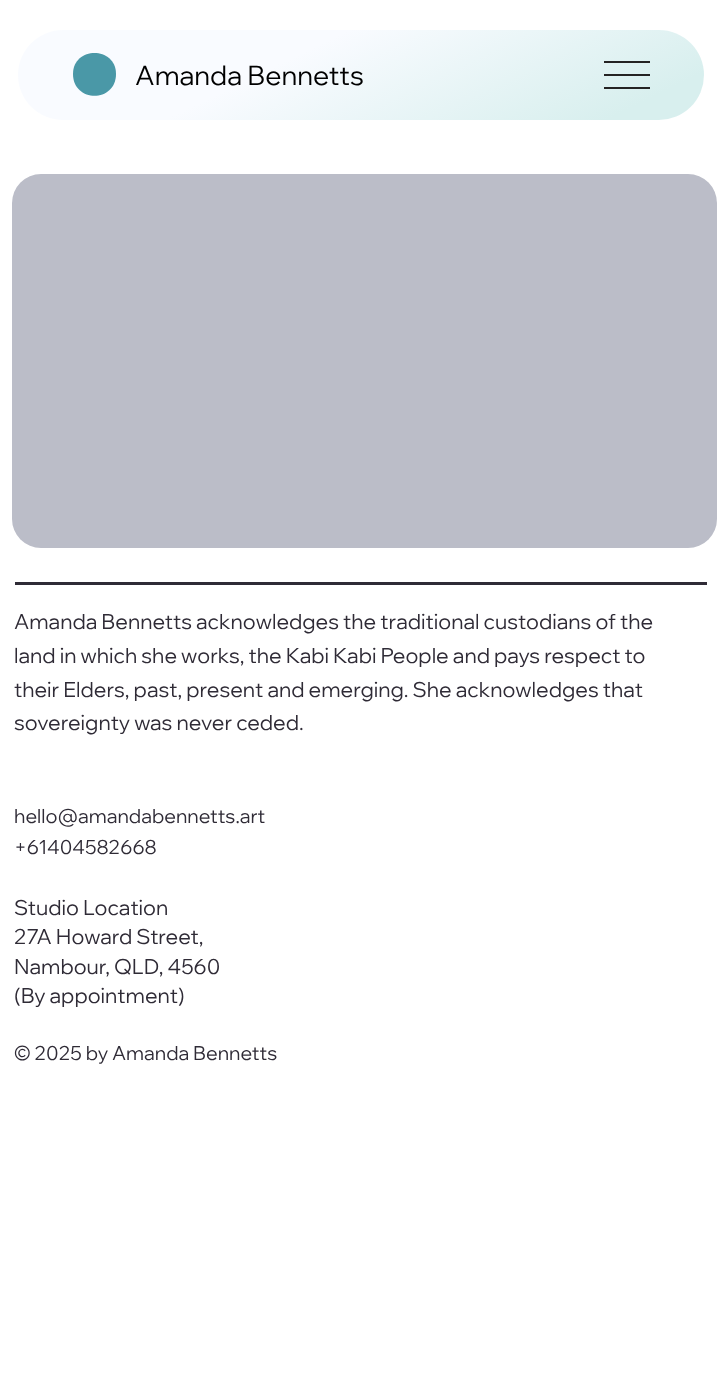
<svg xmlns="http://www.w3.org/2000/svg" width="721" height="1390">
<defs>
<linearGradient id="g1" gradientUnits="userSpaceOnUse" x1="277" y1="-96" x2="444" y2="246"><stop offset="0.38" stop-color="#f9fbff"/><stop offset="0.89" stop-color="#d8efee"/></linearGradient>
</defs>
<rect width="100%" height="100%" fill="#fff"/>
<rect x="18" y="30" width="686" height="90" rx="45" fill="url(#g1)"/>
<path d="M116 74c0 29-43 29-43 0c0-28 43-28 43 0z" fill="#4a98a7"/>
<text x="135" y="85" style="font-family:Wix Madefor Display;font-size:27px;fill:#000">Amanda Bennetts</text>
<rect x="604" y="61" width="46" height="2" fill="#242323"/>
<rect x="604" y="74" width="46" height="2" fill="#242323"/>
<rect x="604" y="87" width="46" height="2" fill="#242323"/>
<rect x="12" y="174" width="705" height="374" rx="29" fill="#bbbdc8"/>
<rect x="15" y="582" width="692" height="3" fill="#2f2b36"/>
<text x="14" y="629" style="font-family:Wix Madefor Display;font-size:21px;fill:#2f2b36">Amanda Bennetts acknowledges the traditional custodians of the</text>
<text x="14" y="663" style="font-family:Wix Madefor Display;font-size:21px;fill:#2f2b36">land in which she works, the Kabi Kabi People and pays respect to</text>
<text x="14" y="697" style="font-family:Wix Madefor Display;font-size:21px;fill:#2f2b36">their Elders, past, present and emerging. She acknowledges that</text>
<text x="14" y="730" style="font-family:Wix Madefor Display;font-size:21px;fill:#2f2b36">sovereignty was never ceded.</text>
<text x="14" y="823" style="font-family:Wix Madefor Display;font-size:19.5px;fill:#2f2b36">hello@amandabennetts.art</text>
<text x="14" y="854" style="font-family:Wix Madefor Display;font-size:19.5px;fill:#2f2b36">+61404582668</text>
<text x="14" y="915" style="font-family:Wix Madefor Display;font-size:21px;fill:#2f2b36">Studio Location</text>
<text x="14" y="944" style="font-family:Wix Madefor Display;font-size:21px;fill:#2f2b36">27A Howard Street,</text>
<text x="14" y="974" style="font-family:Wix Madefor Display;font-size:21px;fill:#2f2b36">Nambour, QLD, 4560</text>
<text x="14" y="1003" style="font-family:Wix Madefor Display;font-size:21px;fill:#2f2b36">(By appointment)</text>
<text x="14" y="1060" style="font-family:Wix Madefor Display;font-size:19.5px;fill:#2f2b36">© 2025 by Amanda Bennetts</text>
</svg>
